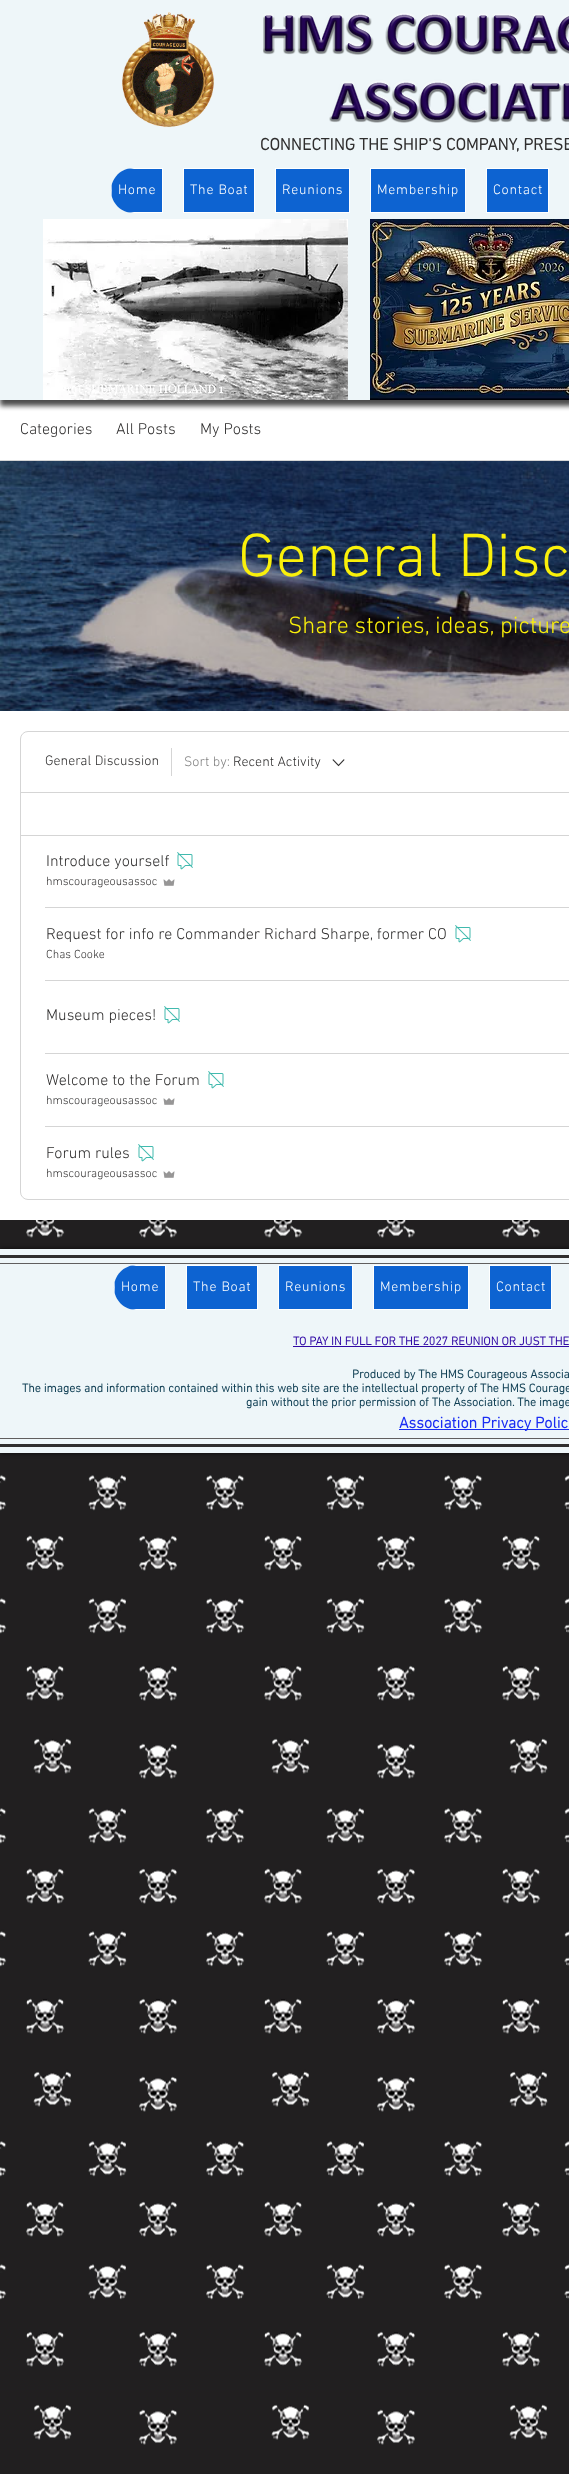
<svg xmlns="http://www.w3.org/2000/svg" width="569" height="2474">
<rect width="100%" height="100%" fill="#fff"/>
<rect y="6" width="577" height="400" fill="#000000b3" filter="blur(2.5px)"/>
<rect width="569" height="400" fill="#eef6f9"/>
<image x="122" y="12" width="92" height="116" href="media/1.png"/>
<image x="263" y="13" width="306" height="110" href="media/2.png"/>
<text x="260" y="150" style="font-family:'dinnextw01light';font-size:17px;font-weight:bold;fill:#2f2e2e">CONNECTING THE SHIP'S COMPANY, PRESE</text>
<path d="M133.5 168h29.5v45h-29.5c-12.5 0-22.5-10-22.5-22.5c0-12.5 10-22.5 22.5-22.5z" fill="#0d63d1"/>
<path d="M134 168l-7 1h35v43h-35l7 1h29v-45zm-22 29c-1-4-1-9 0-13z" fill="#fff" fill-rule="evenodd"/>
<text x="118" y="194" style="font-family:'dinnextw01light';font-size:14px;font-weight:300;letter-spacing:0.75px;fill:#fff">Home</text>
<rect x="183.5" y="168.5" width="71" height="44" fill="#0d63d1" stroke="#fff"/>
<text x="190" y="194" style="font-family:'dinnextw01light';font-size:14px;font-weight:300;letter-spacing:0.75px;fill:#fff">The Boat</text>
<rect x="275.5" y="168.5" width="74" height="44" fill="#0d63d1" stroke="#fff"/>
<text x="282" y="194" style="font-family:'dinnextw01light';font-size:14px;font-weight:300;letter-spacing:0.75px;fill:#fff">Reunions</text>
<rect x="370.5" y="168.5" width="95" height="44" fill="#0d63d1" stroke="#fff"/>
<text x="377" y="194" style="font-family:'dinnextw01light';font-size:14px;font-weight:300;letter-spacing:0.75px;fill:#fff">Membership</text>
<rect x="486.5" y="168.5" width="62" height="44" fill="#0d63d1" stroke="#fff"/>
<text x="493" y="194" style="font-family:'dinnextw01light';font-size:14px;font-weight:300;letter-spacing:0.75px;fill:#fff">Contact</text>
<image x="43" y="219" width="305" height="181" href="media/3.png"/>
<image x="370" y="219" width="199" height="181" href="media/4.png"/>
<rect y="460" width="569" height="1" fill="#d5d5d5"/>
<text x="20" y="434" style="font-family:'dinnextw01light';font-size:16px;font-weight:300;fill:#2f2e2e">Categories</text>
<text x="116" y="434" style="font-family:'dinnextw01light';font-size:16px;font-weight:300;fill:#2f2e2e">All Posts</text>
<text x="200" y="434" style="font-family:'dinnextw01light';font-size:16px;font-weight:300;fill:#2f2e2e">My Posts</text>
<image x="0" y="461" width="569" height="250" href="media/5.png"/>
<text x="238" y="576" style="font-family:'dinnextw01light';font-size:62px;font-weight:300;fill:#faf00a">General Disc</text>
<text x="288" y="633" style="font-family:'dinnextw01light';font-size:24px;font-weight:300;fill:#faf00a">Share stories, ideas, picture</text>
<rect x="20.5" y="731.5" width="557" height="468" rx="7.5" fill="none" stroke="#d5d5d5"/>
<text x="45" y="765" style="font-family:'dinnextw01light';font-size:14px;font-weight:300;fill:#2f2e2e">General Discussion</text>
<rect x="171" y="748" width="1" height="28" fill="#d5d5d5"/>
<text x="184" y="766" style="font-family:'dinnextw01light';font-size:14px;font-weight:300;fill:#828282">Sort by:</text>
<text x="233" y="766" style="font-family:'dinnextw01light';font-size:14px;font-weight:300;fill:#2f2e2e">Recent Activity</text>
<image x="332" y="759" width="13" height="8" href="media/6.png"/>
<rect x="21" y="792" width="548" height="1" fill="#d5d5d5"/>
<rect x="21" y="835" width="548" height="1" fill="#d5d5d5"/>
<text x="46" y="866" style="font-family:'dinnextw01light';font-size:16px;font-weight:300;fill:#2f2e2e">Introduce yourself</text>
<image x="177" y="852" width="16" height="18" href="media/7.png"/>
<text x="46" y="885" style="font-family:'dinnextw01light';font-size:12px;font-weight:300;fill:#2f2e2e">hmscourageousassoc</text>
<image x="163" y="879" width="12" height="7" href="media/8.png"/>
<rect x="45" y="907" width="524" height="1" fill="#d5d5d5"/>
<text x="46" y="939" style="font-family:'dinnextw01light';font-size:16px;font-weight:300;fill:#2f2e2e">Request for info re Commander Richard Sharpe, former CO</text>
<image x="455" y="925" width="16" height="18" href="media/7.png"/>
<text x="46" y="958" style="font-family:'dinnextw01light';font-size:12px;font-weight:300;fill:#2f2e2e">Chas Cooke</text>
<rect x="45" y="980" width="524" height="1" fill="#d5d5d5"/>
<text x="46" y="1020" style="font-family:'dinnextw01light';font-size:16px;font-weight:300;fill:#2f2e2e">Museum pieces!</text>
<image x="164" y="1006" width="16" height="18" href="media/7.png"/>
<rect x="45" y="1053" width="524" height="1" fill="#d5d5d5"/>
<text x="46" y="1085" style="font-family:'dinnextw01light';font-size:16px;font-weight:300;fill:#2f2e2e">Welcome to the Forum</text>
<image x="208" y="1071" width="16" height="18" href="media/7.png"/>
<text x="46" y="1104" style="font-family:'dinnextw01light';font-size:12px;font-weight:300;fill:#2f2e2e">hmscourageousassoc</text>
<image x="163" y="1098" width="12" height="7" href="media/8.png"/>
<rect x="45" y="1126" width="524" height="1" fill="#d5d5d5"/>
<text x="46" y="1158" style="font-family:'dinnextw01light';font-size:16px;font-weight:300;fill:#2f2e2e">Forum rules</text>
<image x="138" y="1144" width="16" height="18" href="media/7.png"/>
<text x="46" y="1177" style="font-family:'dinnextw01light';font-size:12px;font-weight:300;fill:#2f2e2e">hmscourageousassoc</text>
<image x="163" y="1171" width="12" height="7" href="media/8.png"/>
<image x="0" y="1220" width="569" height="1254" href="media/9.png"/>
<rect y="1249" width="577" height="204" fill="#000000b3" filter="blur(2.5px)"/>
<rect y="1249" width="569" height="204" fill="#eef6f9"/>
<rect y="1255" width="569" height="3" fill="#2f2e2e"/>
<rect y="1444" width="569" height="3" fill="#2f2e2e"/>
<rect y="1263" width="569" height="1" fill="#605e5e"/>
<rect y="1438" width="569" height="1" fill="#605e5e"/>
<path d="M136.5 1265h29.5v45h-29.5c-12.5 0-22.5-10-22.5-22.5c0-12.5 10-22.5 22.5-22.5z" fill="#0d63d1"/>
<path d="M136 1265l-6 1h35v43h-35l6 1h30v-45zm-21 29c-1-4-1-9 0-13z" fill="#fff" fill-rule="evenodd"/>
<text x="121" y="1291" style="font-family:'dinnextw01light';font-size:14px;font-weight:300;letter-spacing:0.75px;fill:#fff">Home</text>
<rect x="186.5" y="1265.5" width="71" height="44" fill="#0d63d1" stroke="#fff"/>
<text x="193" y="1291" style="font-family:'dinnextw01light';font-size:14px;font-weight:300;letter-spacing:0.75px;fill:#fff">The Boat</text>
<rect x="278.5" y="1265.5" width="74" height="44" fill="#0d63d1" stroke="#fff"/>
<text x="285" y="1291" style="font-family:'dinnextw01light';font-size:14px;font-weight:300;letter-spacing:0.75px;fill:#fff">Reunions</text>
<rect x="373.5" y="1265.5" width="95" height="44" fill="#0d63d1" stroke="#fff"/>
<text x="380" y="1291" style="font-family:'dinnextw01light';font-size:14px;font-weight:300;letter-spacing:0.75px;fill:#fff">Membership</text>
<rect x="489.5" y="1265.5" width="62" height="44" fill="#0d63d1" stroke="#fff"/>
<text x="496" y="1291" style="font-family:'dinnextw01light';font-size:14px;font-weight:300;letter-spacing:0.75px;fill:#fff">Contact</text>
<text x="293" y="1345" style="font-family:'dinnextw01light';font-size:12px;font-weight:bold;fill:#3109a6">TO PAY IN FULL FOR THE 2027 REUNION OR JUST THE</text>
<rect x="293" y="1346" width="276" height="1" fill="#3109a6"/>
<text x="352" y="1378" style="font-family:'dinnextw01light';font-size:12px;font-weight:bold;fill:#103f54">Produced by The HMS Courageous Associa</text>
<text x="22" y="1392" style="font-family:'dinnextw01light';font-size:12px;font-weight:bold;fill:#103f54">The images and information contained within this web site are the intellectual property of The HMS Courage</text>
<text x="246" y="1406" style="font-family:'dinnextw01light';font-size:12px;font-weight:bold;fill:#103f54">gain without the prior permission of The Association. The image</text>
<rect x="399" y="1429" width="170" height="1" fill="#1a2df3"/>
<text x="399" y="1428" style="font-family:'dinnextw01light';font-size:16px;font-weight:bold;fill:#1a2df3">Association Privacy Polic</text>
</svg>
